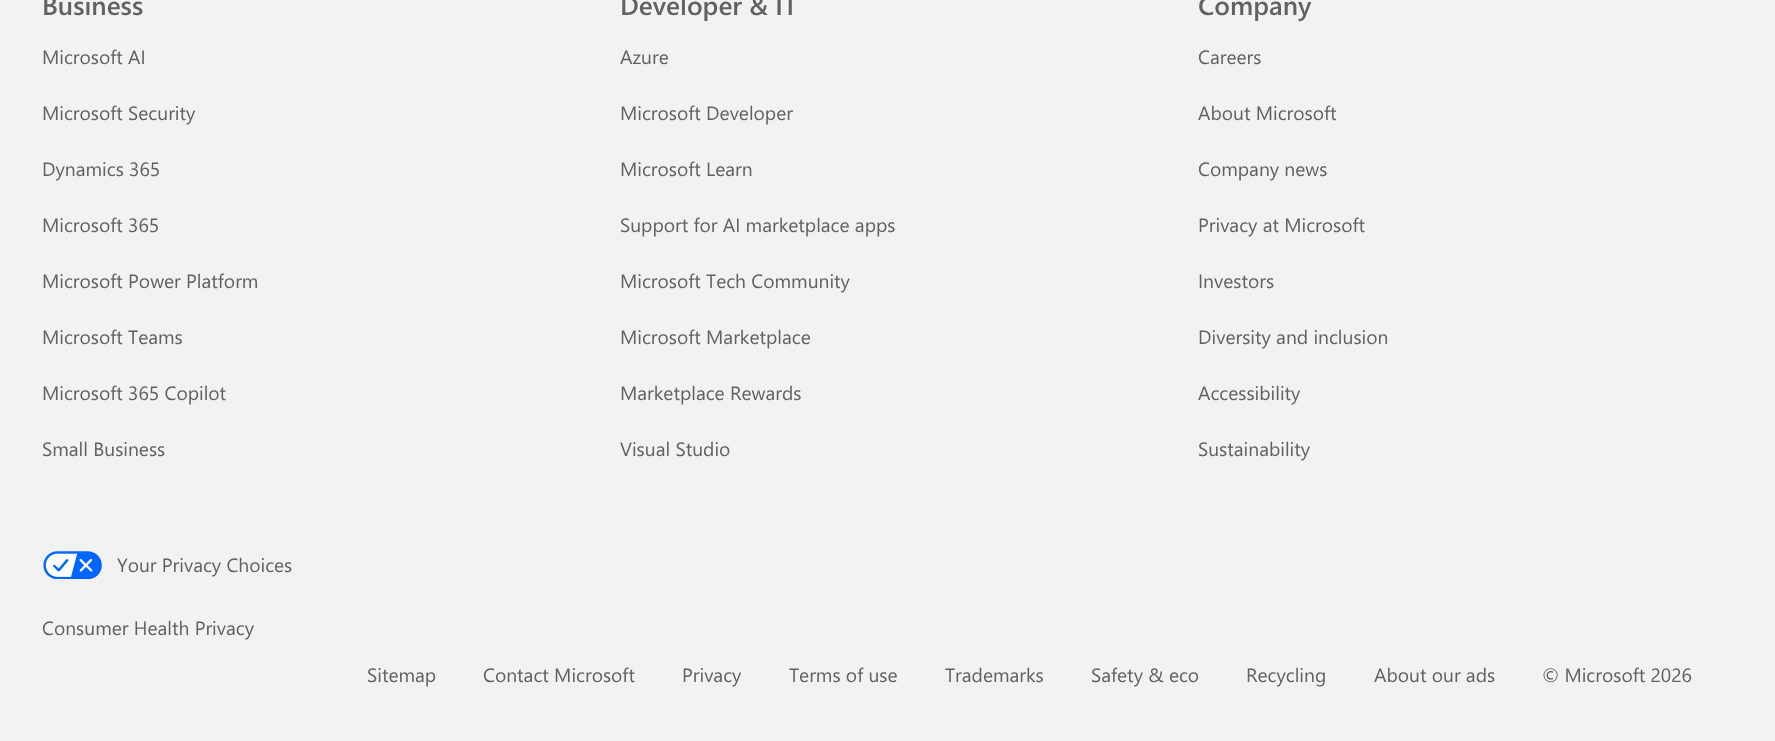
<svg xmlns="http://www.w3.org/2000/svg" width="1775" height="741">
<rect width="100%" height="100%" fill="#f2f2f2"/>
<text x="42" y="15" style="font-family:Segoe UI;font-size:26.25px;font-weight:600;fill:#616161">Business</text>
<text x="42" y="64" style="font-family:Segoe UI;font-size:19.25px;fill:#616161">Microsoft AI</text>
<text x="42" y="120" style="font-family:Segoe UI;font-size:19.25px;fill:#616161">Microsoft Security</text>
<text x="42" y="176" style="font-family:Segoe UI;font-size:19.25px;fill:#616161">Dynamics 365</text>
<text x="42" y="232" style="font-family:Segoe UI;font-size:19.25px;fill:#616161">Microsoft 365</text>
<text x="42" y="288" style="font-family:Segoe UI;font-size:19.25px;fill:#616161">Microsoft Power Platform</text>
<text x="42" y="344" style="font-family:Segoe UI;font-size:19.25px;fill:#616161">Microsoft Teams</text>
<text x="42" y="400" style="font-family:Segoe UI;font-size:19.25px;fill:#616161">Microsoft 365 Copilot</text>
<text x="42" y="456" style="font-family:Segoe UI;font-size:19.25px;fill:#616161">Small Business</text>
<text x="620" y="15" style="font-family:Segoe UI;font-size:26.25px;font-weight:600;fill:#616161">Developer &amp; IT</text>
<text x="620" y="64" style="font-family:Segoe UI;font-size:19.25px;fill:#616161">Azure</text>
<text x="620" y="120" style="font-family:Segoe UI;font-size:19.25px;fill:#616161">Microsoft Developer</text>
<text x="620" y="176" style="font-family:Segoe UI;font-size:19.25px;fill:#616161">Microsoft Learn</text>
<text x="620" y="232" style="font-family:Segoe UI;font-size:19.25px;fill:#616161">Support for AI marketplace apps</text>
<text x="620" y="288" style="font-family:Segoe UI;font-size:19.25px;fill:#616161">Microsoft Tech Community</text>
<text x="620" y="344" style="font-family:Segoe UI;font-size:19.25px;fill:#616161">Microsoft Marketplace</text>
<text x="620" y="400" style="font-family:Segoe UI;font-size:19.25px;fill:#616161">Marketplace Rewards</text>
<text x="620" y="456" style="font-family:Segoe UI;font-size:19.25px;fill:#616161">Visual Studio</text>
<text x="1198" y="15" style="font-family:Segoe UI;font-size:26.25px;font-weight:600;fill:#616161">Company</text>
<text x="1198" y="64" style="font-family:Segoe UI;font-size:19.25px;fill:#616161">Careers</text>
<text x="1198" y="120" style="font-family:Segoe UI;font-size:19.25px;fill:#616161">About Microsoft</text>
<text x="1198" y="176" style="font-family:Segoe UI;font-size:19.25px;fill:#616161">Company news</text>
<text x="1198" y="232" style="font-family:Segoe UI;font-size:19.25px;fill:#616161">Privacy at Microsoft</text>
<text x="1198" y="288" style="font-family:Segoe UI;font-size:19.25px;fill:#616161">Investors</text>
<text x="1198" y="344" style="font-family:Segoe UI;font-size:19.25px;fill:#616161">Diversity and inclusion</text>
<text x="1198" y="400" style="font-family:Segoe UI;font-size:19.25px;fill:#616161">Accessibility</text>
<text x="1198" y="456" style="font-family:Segoe UI;font-size:19.25px;fill:#616161">Sustainability</text>
<image x="43" y="551" width="59" height="28" href="media/1.png"/>
<text x="117" y="572" style="font-family:Segoe UI;font-size:19.25px;fill:#616161">Your Privacy Choices</text>
<text x="42" y="635" style="font-family:Segoe UI;font-size:19.25px;fill:#616161">Consumer Health Privacy</text>
<text x="367" y="682" style="font-family:Segoe UI;font-size:19.25px;fill:#616161">Sitemap</text>
<text x="483" y="682" style="font-family:Segoe UI;font-size:19.25px;fill:#616161">Contact Microsoft</text>
<text x="682" y="682" style="font-family:Segoe UI;font-size:19.25px;fill:#616161">Privacy</text>
<text x="789" y="682" style="font-family:Segoe UI;font-size:19.25px;fill:#616161">Terms of use</text>
<text x="945" y="682" style="font-family:Segoe UI;font-size:19.25px;fill:#616161">Trademarks</text>
<text x="1091" y="682" style="font-family:Segoe UI;font-size:19.25px;fill:#616161">Safety &amp; eco</text>
<text x="1246" y="682" style="font-family:Segoe UI;font-size:19.25px;fill:#616161">Recycling</text>
<text x="1374" y="682" style="font-family:Segoe UI;font-size:19.25px;fill:#616161">About our ads</text>
<text x="1542" y="682" style="font-family:Segoe UI;font-size:19.25px;fill:#616161">© Microsoft 2026</text>
</svg>
